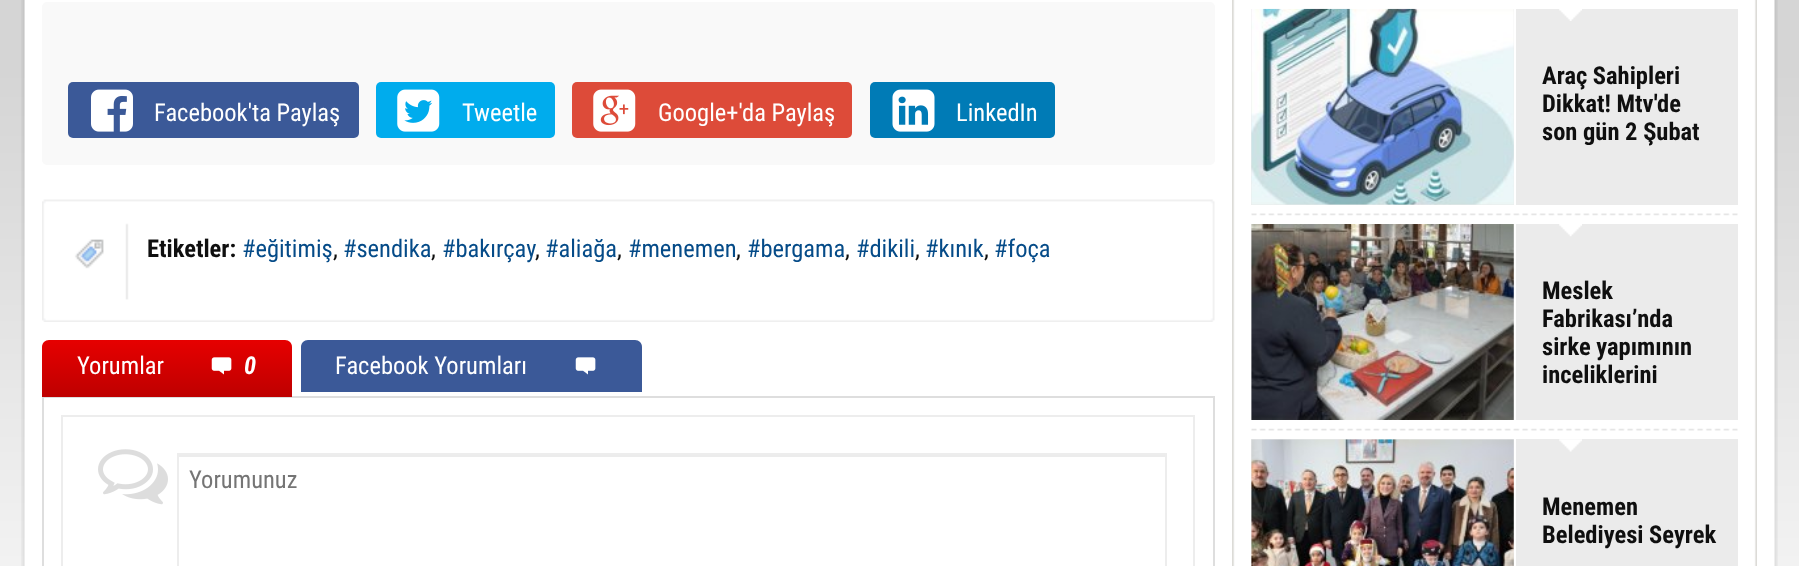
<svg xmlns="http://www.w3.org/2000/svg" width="1799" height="566">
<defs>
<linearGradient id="g1" gradientUnits="userSpaceOnUse" x1="167" y1="340" x2="167" y2="397"><stop offset="0" stop-color="#e60000"/><stop offset="1" stop-color="#be0000"/></linearGradient>
</defs>
<rect width="100%" height="100%" fill="#fff"/>
<image x="0" y="0" width="1799" height="566" href="media/1.png"/>
<image x="21" y="0" width="1757" height="566" href="media/2.png"/>
<rect x="42" y="2" width="1173" height="163" rx="5" fill="#f9f9f9"/>
<rect x="68" y="82" width="291" height="56" rx="5" fill="#3b5998"/>
<image x="91" y="89" width="42" height="43" href="media/3.png"/>
<text x="154" y="121" style="font-family:Roboto Condensed;font-size:24.5px;fill:#fff">Facebook'ta Paylaş</text>
<rect x="376" y="82" width="179" height="56" rx="5" fill="#00aced"/>
<image x="397" y="89" width="43" height="43" href="media/4.png"/>
<text x="462" y="121" style="font-family:Roboto Condensed;font-size:24.5px;fill:#fff">Tweetle</text>
<rect x="572" y="82" width="280" height="56" rx="5" fill="#dd4b39"/>
<image x="593" y="89" width="43" height="43" href="media/5.png"/>
<text x="658" y="121" style="font-family:Roboto Condensed;font-size:24.5px;fill:#fff">Google+'da Paylaş</text>
<rect x="870" y="82" width="185" height="56" rx="5" fill="#007bb6"/>
<image x="892" y="89" width="43" height="43" href="media/6.png"/>
<text x="956" y="121" style="font-family:Roboto Condensed;font-size:24.5px;fill:#fff">LinkedIn</text>
<image x="42" y="199" width="1173" height="123" href="media/7.png"/>
<text x="147" y="257" style="font-family:Roboto Condensed;font-size:24.5px;font-weight:bold;fill:#0f0f0f">Etiketler:</text>
<text x="242" y="257" style="font-family:Roboto Condensed;font-size:24.5px;fill:#054b88">#eğitimiş</text>
<text x="333" y="257" style="font-family:Roboto Condensed;font-size:24.5px;fill:#0f0f0f">,</text>
<text x="343" y="257" style="font-family:Roboto Condensed;font-size:24.5px;fill:#054b88">#sendika</text>
<text x="431" y="257" style="font-family:Roboto Condensed;font-size:24.5px;fill:#0f0f0f">,</text>
<text x="442" y="257" style="font-family:Roboto Condensed;font-size:24.5px;fill:#054b88">#bakırçay</text>
<text x="535" y="257" style="font-family:Roboto Condensed;font-size:24.5px;fill:#0f0f0f">,</text>
<text x="545" y="257" style="font-family:Roboto Condensed;font-size:24.5px;fill:#054b88">#aliağa</text>
<text x="617" y="257" style="font-family:Roboto Condensed;font-size:24.5px;fill:#0f0f0f">,</text>
<text x="628" y="257" style="font-family:Roboto Condensed;font-size:24.5px;fill:#054b88">#menemen</text>
<text x="736" y="257" style="font-family:Roboto Condensed;font-size:24.5px;fill:#0f0f0f">,</text>
<text x="747" y="257" style="font-family:Roboto Condensed;font-size:24.5px;fill:#054b88">#bergama</text>
<text x="845" y="257" style="font-family:Roboto Condensed;font-size:24.5px;fill:#0f0f0f">,</text>
<text x="856" y="257" style="font-family:Roboto Condensed;font-size:24.5px;fill:#054b88">#dikili</text>
<text x="915" y="257" style="font-family:Roboto Condensed;font-size:24.5px;fill:#0f0f0f">,</text>
<text x="925" y="257" style="font-family:Roboto Condensed;font-size:24.5px;fill:#054b88">#kınık</text>
<text x="984" y="257" style="font-family:Roboto Condensed;font-size:24.5px;fill:#0f0f0f">,</text>
<text x="994" y="257" style="font-family:Roboto Condensed;font-size:24.5px;fill:#054b88">#foça</text>
<rect x="43" y="397" width="1171" height="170" fill="none" stroke="#dedede" stroke-width="2"/>
<path d="M49 340h236c4 0 7 3 7 7v50h-250v-50c0-4 3-7 7-7z" fill="url(#g1)"/>
<text x="77" y="374" style="font-family:Roboto Condensed;font-size:24.5px;fill:#fff">Yorumlar</text>
<image x="211" y="357" width="21" height="18" href="media/8.png"/>
<text x="244" y="374" style="font-family:Roboto Condensed;font-size:24.5px;font-weight:bold;font-style:italic;fill:#fff">0</text>
<path d="M308 340h327c4 0 7 3 7 7v45h-341v-45c0-4 3-7 7-7z" fill="#3b5998"/>
<text x="335" y="374" style="font-family:Roboto Condensed;font-size:24.5px;fill:#fff">Facebook Yorumları</text>
<image x="575" y="357" width="21" height="18" href="media/9.png"/>
<rect x="62" y="416" width="1132" height="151" fill="none" stroke="#ededed" stroke-width="2"/>
<image x="98" y="449" width="70" height="56" href="media/10.png"/>
<rect x="179" y="455" width="987" height="2" fill="#ececec"/>
<rect x="178" y="454" width="988" height="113" fill="none" stroke="#ededed" stroke-width="2"/>
<text x="189" y="488" style="font-family:Roboto Condensed;font-size:24.5px;fill:#757575">Yorumunuz</text>
<image x="1232" y="0" width="525" height="566" href="media/11.png"/>
<rect x="1251" y="9" width="487" height="196" fill="#ebebeb"/>
<image x="1559" y="9" width="23" height="12" href="media/12.png"/>
<rect x="1514" y="9" width="2" height="196" fill="#fff"/>
<image x="1251" y="8" width="263" height="197" href="media/13.png"/>
<text x="1542" y="84" style="font-family:Roboto Condensed;font-size:24.5px;font-weight:bold;fill:#0f0f0f">Araç Sahipleri</text>
<text x="1542" y="112" style="font-family:Roboto Condensed;font-size:24.5px;font-weight:bold;fill:#0f0f0f">Dikkat! Mtv'de</text>
<text x="1542" y="140" style="font-family:Roboto Condensed;font-size:24.5px;font-weight:bold;fill:#0f0f0f">son gün 2 Şubat</text>
<image x="1251" y="213" width="487" height="3" href="media/14.png"/>
<rect x="1251" y="224" width="487" height="196" fill="#ebebeb"/>
<image x="1559" y="224" width="23" height="13" href="media/15.png"/>
<rect x="1514" y="224" width="2" height="196" fill="#fff"/>
<image x="1251" y="224" width="263" height="196" href="media/16.png"/>
<text x="1542" y="299" style="font-family:Roboto Condensed;font-size:24.5px;font-weight:bold;fill:#0f0f0f">Meslek</text>
<text x="1542" y="327" style="font-family:Roboto Condensed;font-size:24.5px;font-weight:bold;fill:#0f0f0f">Fabrikası’nda</text>
<text x="1542" y="355" style="font-family:Roboto Condensed;font-size:24.5px;font-weight:bold;fill:#0f0f0f">sirke yapımının</text>
<text x="1542" y="383" style="font-family:Roboto Condensed;font-size:24.5px;font-weight:bold;fill:#0f0f0f">inceliklerini</text>
<image x="1251" y="428" width="487" height="3" href="media/17.png"/>
<rect x="1251" y="439" width="487" height="127" fill="#ebebeb"/>
<image x="1559" y="439" width="23" height="13" href="media/18.png"/>
<rect x="1514" y="439" width="2" height="127" fill="#fff"/>
<image x="1251" y="439" width="263" height="127" href="media/19.png"/>
<text x="1542" y="515" style="font-family:Roboto Condensed;font-size:24.5px;font-weight:bold;fill:#0f0f0f">Menemen</text>
<text x="1542" y="543" style="font-family:Roboto Condensed;font-size:24.5px;font-weight:bold;fill:#0f0f0f">Belediyesi Seyrek</text>
</svg>
